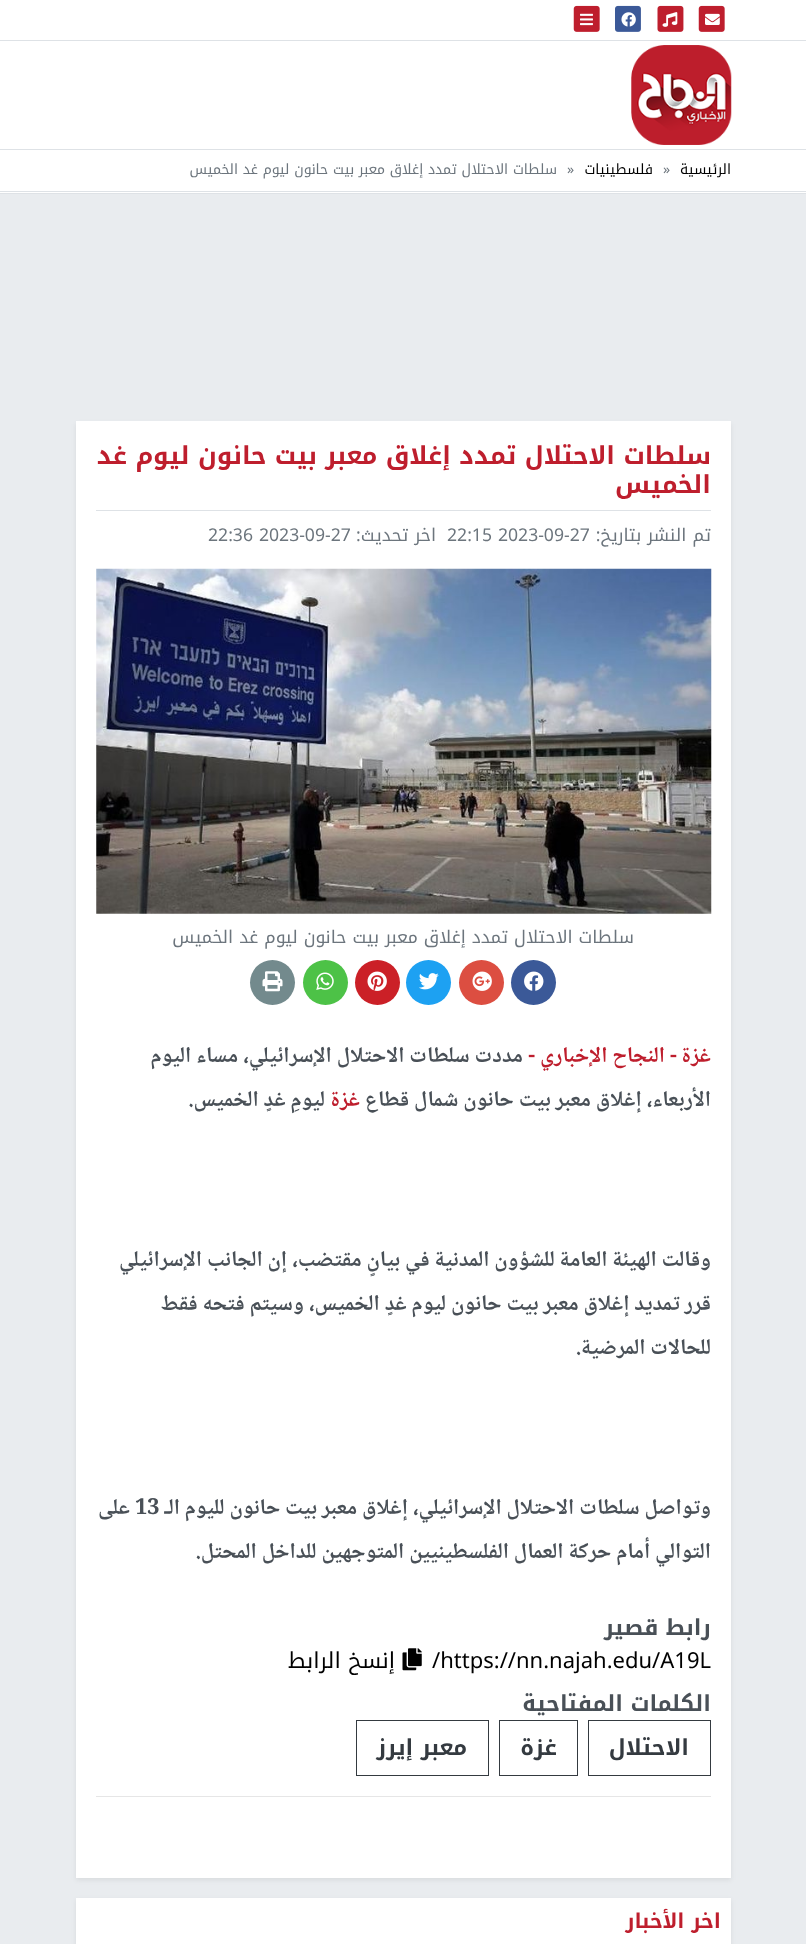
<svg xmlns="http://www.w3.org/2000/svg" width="806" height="1944">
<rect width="100%" height="100%" fill="#e9ecef"/>
<rect width="806" height="193" fill="#fff"/>
<rect y="193" width="806" height="1" fill="#dee2e6"/>
<rect y="40" width="806" height="1" fill="#dee2e6"/>
<image x="698" y="5" width="27" height="27" href="media/1.png"/>
<image x="705" y="13" width="15" height="12" href="media/2.png"/>
<image x="657" y="5" width="27" height="27" href="media/3.png"/>
<image x="662" y="12" width="16" height="15" href="media/4.png"/>
<image x="615" y="5" width="26" height="27" href="media/5.png"/>
<image x="621" y="12" width="15" height="15" href="media/6.png"/>
<image x="573" y="5" width="27" height="27" href="media/1.png"/>
<image x="580" y="13" width="13" height="13" href="media/7.png"/>
<image x="631" y="45" width="101" height="100" href="media/8.png"/>
<rect y="149" width="806" height="1" fill="#dee2e6"/>
<rect y="191" width="806" height="1" fill="#dee2e6"/>
<text x="731" y="174" style="font-family:Noto Kufi Arabic;font-size:14px;direction:rtl;fill:#000">الرئيسية</text>
<text x="663" y="174" style="font-family:Noto Kufi Arabic;font-size:14px;fill:#6c757d">»</text>
<text x="653" y="174" style="font-family:Noto Kufi Arabic;font-size:14px;direction:rtl;fill:#000">فلسطينيات</text>
<text x="567" y="174" style="font-family:Noto Kufi Arabic;font-size:14px;fill:#6c757d">»</text>
<text x="557" y="174" style="font-family:Noto Kufi Arabic;font-size:14px;direction:rtl;fill:#6c757d">سلطات الاحتلال تمدد إغلاق معبر بيت حانون ليوم غد الخميس</text>
<rect x="76" y="424" width="655" height="1456" fill="#00000012" filter="blur(2.5px)"/>
<rect x="76" y="421" width="655" height="1457" fill="#fff"/>
<rect x="96" y="510" width="615" height="1" fill="#dee2e6"/>
<text x="711" y="464" style="font-family:Noto Kufi Arabic;font-size:24.75px;font-weight:bold;direction:rtl;fill:#be1e2d">سلطات الاحتلال تمدد إغلاق معبر بيت حانون ليوم غد</text>
<text x="711" y="493" style="font-family:Noto Kufi Arabic;font-size:24.75px;font-weight:bold;direction:rtl;fill:#be1e2d">الخميس</text>
<text x="711" y="541" style="font-family:Noto Kufi Arabic;font-size:17.6px;direction:rtl;fill:#6c757d">تم النشر بتاريخ:</text>
<text x="447" y="541" style="font-family:Noto Kufi Arabic;font-size:17.6px;fill:#6c757d">22:15 2023-09-27</text>
<text x="436" y="541" style="font-family:Noto Kufi Arabic;font-size:17.6px;direction:rtl;fill:#6c757d">اخر تحديث:</text>
<text x="208" y="541" style="font-family:Noto Kufi Arabic;font-size:17.6px;fill:#6c757d">22:36 2023-09-27</text>
<image x="96" y="568" width="616" height="346" href="media/9.png"/>
<text x="634" y="943" style="font-family:Noto Kufi Arabic;font-size:17.6px;direction:rtl;fill:#6c757d">سلطات الاحتلال تمدد إغلاق معبر بيت حانون ليوم غد الخميس</text>
<circle cx="533.5" cy="982.5" r="22.5" fill="#3b5998"/>
<image x="524" y="971" width="20" height="20" href="media/10.png"/>
<circle cx="481.5" cy="982.5" r="22.5" fill="#dc4e41"/>
<image x="472" y="971" width="20" height="20" href="media/11.png"/>
<circle cx="428.5" cy="982.5" r="22.5" fill="#1da1f2"/>
<image x="419" y="973" width="20" height="17" href="media/12.png"/>
<circle cx="377.5" cy="982.5" r="22.5" fill="#cb2027"/>
<image x="367" y="971" width="20" height="20" href="media/13.png"/>
<circle cx="325.5" cy="982.5" r="22.5" fill="#4dc247"/>
<image x="316" y="972" width="18" height="18" href="media/14.png"/>
<circle cx="272.5" cy="982.5" r="22.5" fill="#738a8d"/>
<image x="262" y="971" width="21" height="21" href="media/15.png"/>
<text x="711" y="1062" style="font-family:Noto Naskh Arabic;font-size:22px;font-weight:bold;direction:rtl;fill:#be1e2d">غزة -</text>
<text x="665" y="1062" style="font-family:Noto Naskh Arabic;font-size:22px;font-weight:bold;direction:rtl;fill:#be1e2d">النجاح الإخباري -</text>
<text x="523" y="1062" style="font-family:Noto Naskh Arabic;font-size:22px;font-weight:bold;direction:rtl;fill:#495057">مددت سلطات الاحتلال الإسرائيلي، مساء اليوم</text>
<text x="711" y="1106" style="font-family:Noto Naskh Arabic;font-size:22px;font-weight:bold;direction:rtl;fill:#495057">الأربعاء، إغلاق معبر بيت حانون شمال قطاع</text>
<text x="360" y="1106" style="font-family:Noto Naskh Arabic;font-size:22px;font-weight:bold;direction:rtl;fill:#be1e2d">غزة</text>
<text x="325" y="1106" style="font-family:Noto Naskh Arabic;font-size:22px;font-weight:bold;direction:rtl;fill:#495057">ليومِ غدٍ الخميس.</text>
<text x="711" y="1266" style="font-family:Noto Naskh Arabic;font-size:22px;font-weight:bold;direction:rtl;fill:#495057">وقالت الهيئة العامة للشؤون المدنية في بيانٍ مقتضب، إن الجانب الإسرائيلي</text>
<text x="711" y="1310" style="font-family:Noto Naskh Arabic;font-size:22px;font-weight:bold;direction:rtl;fill:#495057">قرر تمديد إغلاق معبر بيت حانون ليوم غدٍ الخميس، وسيتم فتحه فقط</text>
<text x="711" y="1354" style="font-family:Noto Naskh Arabic;font-size:22px;font-weight:bold;direction:rtl;fill:#495057">للحالات المرضية.</text>
<text x="711" y="1514" style="font-family:Noto Naskh Arabic;font-size:22px;font-weight:bold;direction:rtl;fill:#495057">وتواصل سلطات الاحتلال الإسرائيلي، إغلاق معبر بيت حانون لليوم الـ</text>
<text x="135" y="1514" style="font-family:Noto Naskh Arabic;font-size:22px;font-weight:bold;fill:#495057">13</text>
<text x="130" y="1514" style="font-family:Noto Naskh Arabic;font-size:22px;font-weight:bold;direction:rtl;fill:#495057">على</text>
<text x="711" y="1558" style="font-family:Noto Naskh Arabic;font-size:22px;font-weight:bold;direction:rtl;fill:#495057">التوالي أمام حركة العمال الفلسطينيين المتوجهين للداخل المحتل.</text>
<text x="711" y="1635" style="font-family:Noto Kufi Arabic;font-size:22px;font-weight:bold;direction:rtl;fill:#495057">رابط قصير</text>
<text x="432" y="1668" style="font-family:Noto Kufi Arabic;font-size:22px;fill:#000">/https://nn.najah.edu/A19L</text>
<image x="402" y="1648" width="20" height="23" href="media/16.png"/>
<text x="395" y="1668" style="font-family:Noto Kufi Arabic;font-size:22px;direction:rtl;fill:#000">إنسخ الرابط</text>
<text x="711" y="1711" style="font-family:Noto Kufi Arabic;font-size:22px;font-weight:bold;direction:rtl;fill:#495057">الكلمات المفتاحية</text>
<rect x="588.5" y="1720.5" width="122" height="55" fill="none" stroke="#343a40"/>
<text x="689" y="1755" style="font-family:Noto Kufi Arabic;font-size:22px;font-weight:bold;direction:rtl;fill:#343a40">الاحتلال</text>
<rect x="499.5" y="1720.5" width="78" height="55" fill="none" stroke="#343a40"/>
<text x="557" y="1755" style="font-family:Noto Kufi Arabic;font-size:22px;font-weight:bold;direction:rtl;fill:#343a40">غزة</text>
<rect x="356.5" y="1720.5" width="132" height="55" fill="none" stroke="#343a40"/>
<text x="467" y="1755" style="font-family:Noto Kufi Arabic;font-size:22px;font-weight:bold;direction:rtl;fill:#343a40">معبر إيرز</text>
<rect x="96" y="1796" width="615" height="1" fill="#e6e6e6"/>
<rect x="76" y="1900" width="655" height="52" fill="#00000012" filter="blur(2.5px)"/>
<rect x="76" y="1898" width="655" height="46" fill="#fff"/>
<text x="721" y="1928" style="font-family:Noto Kufi Arabic;font-size:20.5px;font-weight:bold;direction:rtl;fill:#be1e2d">اخر الأخبار</text>
</svg>
